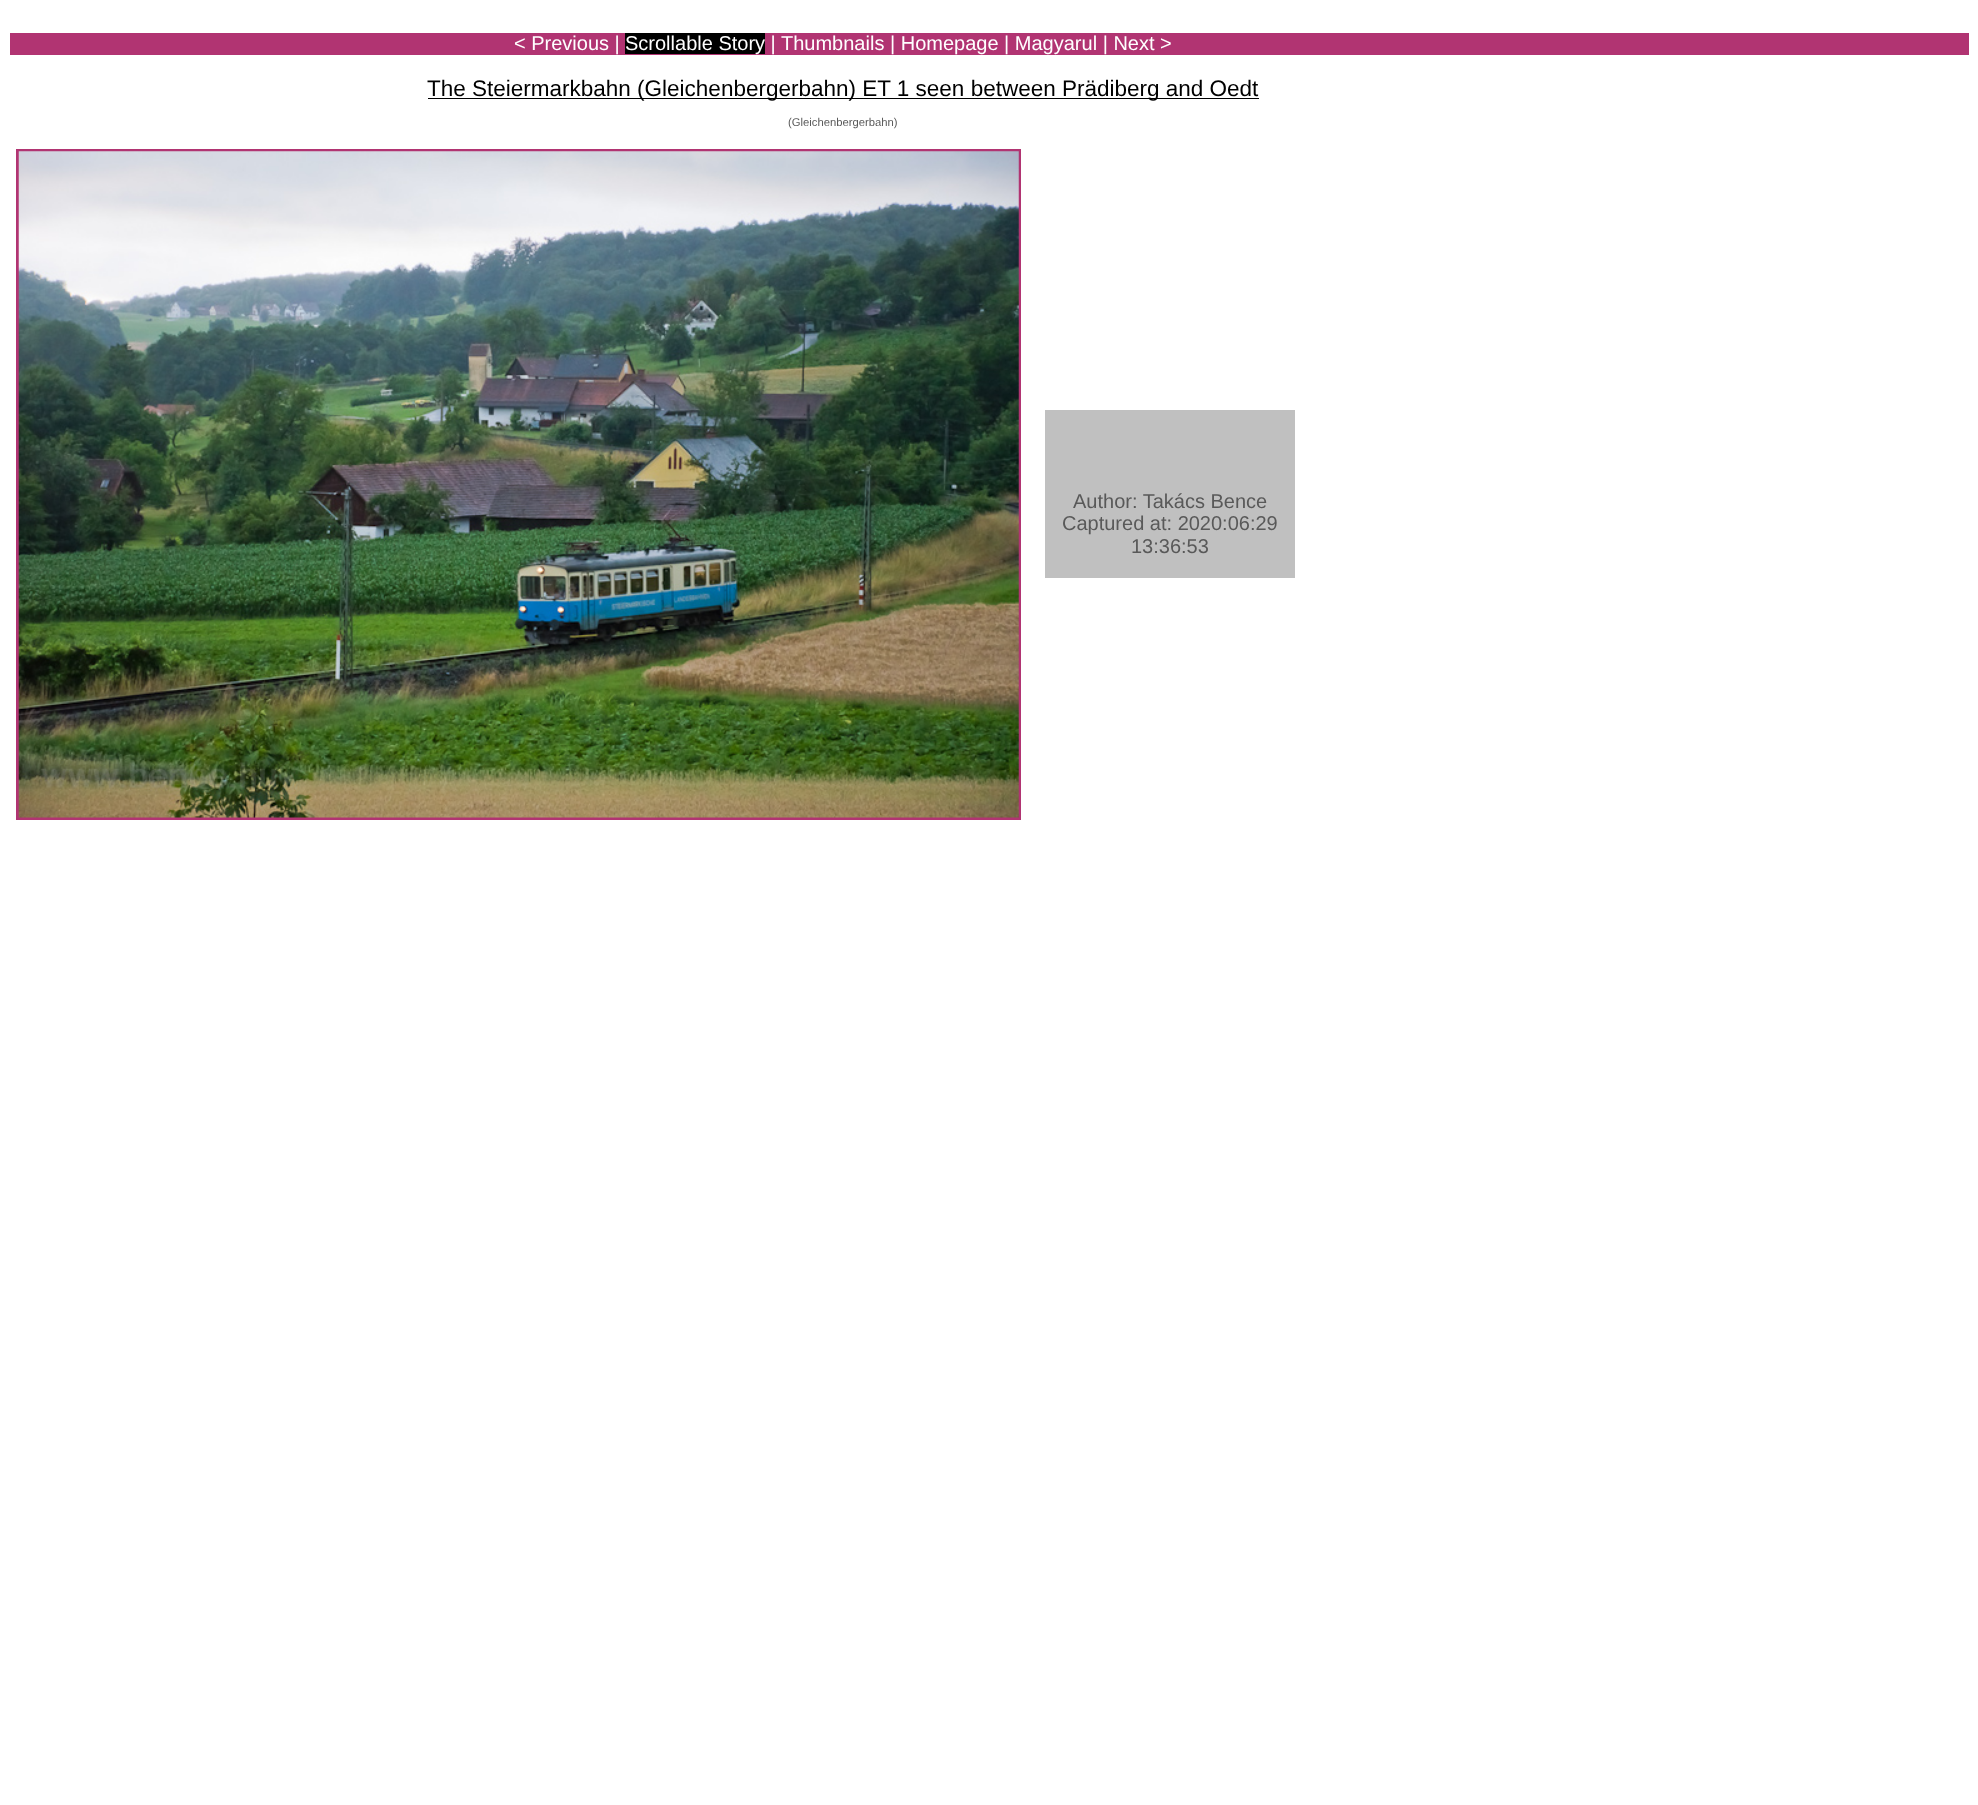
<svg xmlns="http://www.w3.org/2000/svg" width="1978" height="1805">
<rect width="100%" height="100%" fill="#fff"/>
<rect x="10" y="33" width="1959" height="22" fill="#b13472"/>
<text x="514" y="50" style="font-family:Liberation Sans;font-size:20px;fill:#fff">&lt; Previous |</text>
<rect x="625" y="33" width="140" height="21" fill="#000"/>
<text x="625" y="50" style="font-family:Liberation Sans;font-size:20px;fill:#fff">Scrollable Story |</text>
<text x="781" y="50" style="font-family:Liberation Sans;font-size:20px;fill:#fff">Thumbnails | Homepage | Magyarul | Next &gt;</text>
<rect x="428" y="98" width="831" height="1" fill="#000"/>
<text x="427" y="96" style="font-family:Liberation Sans;font-size:22.5px;fill:#000">The Steiermarkbahn (Gleichenbergerbahn) ET 1 seen between Prädiberg and Oedt</text>
<text x="788" y="126" style="font-family:Liberation Sans;font-size:11.25px;fill:#595959">(Gleichenbergerbahn)</text>
<rect x="17.5" y="150.5" width="1002" height="668" fill="none" stroke="#b13472" stroke-width="3"/>
<image x="18" y="151" width="1001" height="667" href="media/1.png"/>
<rect x="1045" y="410" width="250" height="168" fill="#c0c0c0"/>
<text x="1073" y="508" style="font-family:Liberation Sans;font-size:20px;fill:#595959">Author: Takács Bence</text>
<text x="1062" y="530" style="font-family:Liberation Sans;font-size:20px;fill:#595959">Captured at: 2020:06:29</text>
<text x="1131" y="553" style="font-family:Liberation Sans;font-size:20px;fill:#595959">13:36:53</text>
</svg>
